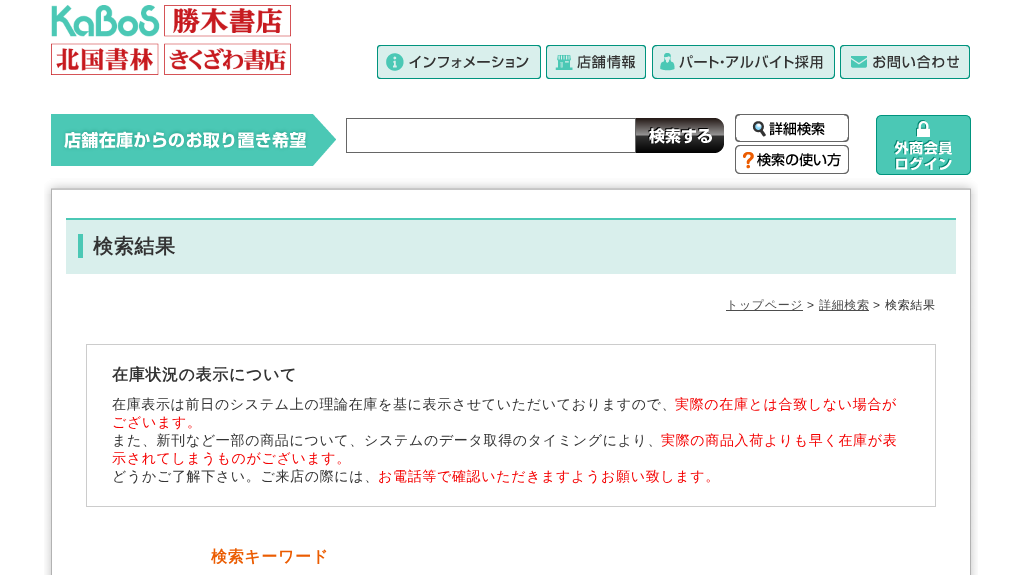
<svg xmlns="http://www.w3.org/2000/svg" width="1021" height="575">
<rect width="100%" height="100%" fill="#fff"/>
<image x="51" y="5" width="240" height="70" href="media/1.png"/>
<image x="377" y="45" width="164" height="34" href="media/2.png"/>
<image x="546" y="45" width="100" height="34" href="media/3.png"/>
<image x="652" y="45" width="183" height="34" href="media/4.png"/>
<image x="840" y="45" width="130" height="34" href="media/5.png"/>
<image x="51" y="114" width="285" height="52" href="media/6.png"/>
<rect x="346.5" y="118.5" width="289" height="34" fill="none" stroke="#666"/>
<image x="636" y="118" width="88" height="35" href="media/7.png"/>
<image x="735" y="114" width="114" height="28" href="media/8.png"/>
<image x="735" y="145" width="114" height="29" href="media/9.png"/>
<image x="876" y="115" width="95" height="60" href="media/10.png"/>
<image x="44" y="194" width="934" height="381" href="media/11.png"/>
<image x="44" y="178" width="934" height="16" href="media/12.png"/>
<rect x="66" y="220" width="890" height="54" fill="#d9efec"/>
<rect x="66" y="218" width="890" height="2" fill="#4bc8b5"/>
<rect x="78" y="234" width="5" height="24" fill="#4bc8b5"/>
<text x="93" y="253" style="font-family:WenQuanYi Zen Hei;font-size:20px;font-weight:bold;letter-spacing:0.65px;fill:#333">検索結果</text>
<rect x="726" y="310" width="77" height="1" fill="#4d4d4d"/>
<text x="726" y="309" style="font-family:WenQuanYi Zen Hei;font-size:12px;font-weight:500;letter-spacing:0.65px;fill:#4d4d4d">トップページ</text>
<text x="807" y="309" style="font-family:Liberation Sans;font-size:12px;letter-spacing:0.65px;fill:#333">&gt;</text>
<rect x="819" y="310" width="50" height="1" fill="#4d4d4d"/>
<text x="819" y="309" style="font-family:WenQuanYi Zen Hei;font-size:12px;font-weight:500;letter-spacing:0.65px;fill:#4d4d4d">詳細検索</text>
<text x="873" y="309" style="font-family:Liberation Sans;font-size:12px;letter-spacing:0.65px;fill:#333">&gt;</text>
<text x="885" y="309" style="font-family:WenQuanYi Zen Hei;font-size:12px;font-weight:500;letter-spacing:0.65px;fill:#333">検索結果</text>
<rect x="86.5" y="344.5" width="849" height="162" fill="none" stroke="#ccc"/>
<text x="112" y="380" style="font-family:WenQuanYi Zen Hei;font-size:16px;font-weight:bold;letter-spacing:0.65px;fill:#333">在庫状況の表示について</text>
<text x="112" y="409" style="font-family:WenQuanYi Zen Hei;font-size:14px;font-weight:500;letter-spacing:0.65px;fill:#333">在庫表示は前日のシステム上の理論在庫を基に表示させていただいておりますので、</text>
<text x="675" y="409" style="font-family:WenQuanYi Zen Hei;font-size:14px;font-weight:500;letter-spacing:0.65px;fill:#f40000">実際の在庫とは合致しない場合が</text>
<text x="112" y="427" style="font-family:WenQuanYi Zen Hei;font-size:14px;font-weight:500;letter-spacing:0.65px;fill:#f40000">ございます。</text>
<text x="112" y="445" style="font-family:WenQuanYi Zen Hei;font-size:14px;font-weight:500;letter-spacing:0.65px;fill:#333">また、新刊など一部の商品について、システムのデータ取得のタイミングにより、</text>
<text x="661" y="445" style="font-family:WenQuanYi Zen Hei;font-size:14px;font-weight:500;letter-spacing:0.65px;fill:#f40000">実際の商品入荷よりも早く在庫が表</text>
<text x="112" y="463" style="font-family:WenQuanYi Zen Hei;font-size:14px;font-weight:500;letter-spacing:0.65px;fill:#f40000">示されてしまうものがございます。</text>
<text x="112" y="481" style="font-family:WenQuanYi Zen Hei;font-size:14px;font-weight:500;letter-spacing:0.65px;fill:#333">どうかご了解下さい。ご来店の際には、</text>
<text x="378" y="481" style="font-family:WenQuanYi Zen Hei;font-size:14px;font-weight:500;letter-spacing:0.65px;fill:#f40000">お電話等で確認いただきますようお願い致します。</text>
<text x="211" y="562" style="font-family:WenQuanYi Zen Hei;font-size:16px;font-weight:bold;letter-spacing:0.65px;fill:#eb5c01">検索キーワード</text>
</svg>
